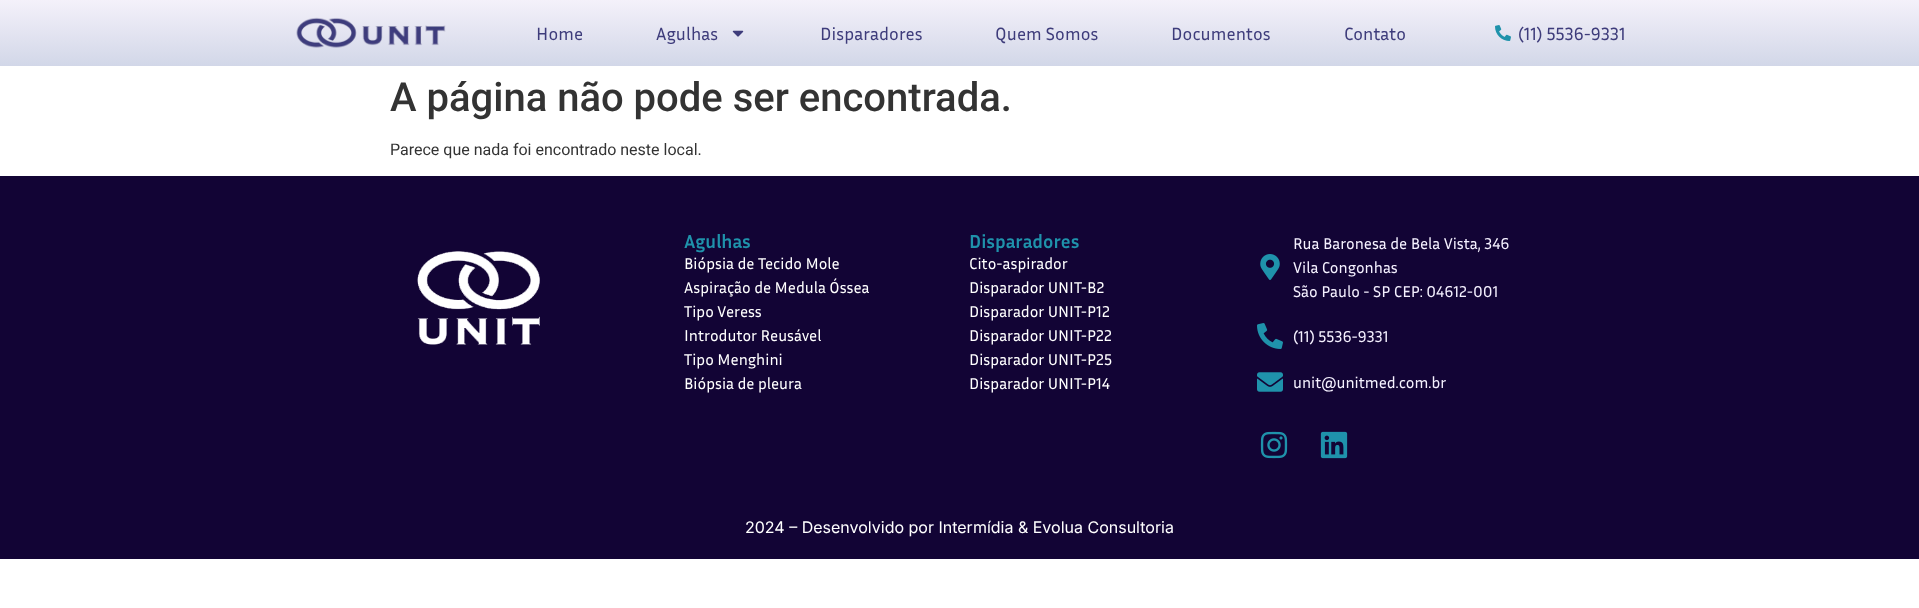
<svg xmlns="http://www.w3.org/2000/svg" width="1919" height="608">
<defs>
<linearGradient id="g1" gradientUnits="userSpaceOnUse" x1="960" y1="0" x2="960" y2="66"><stop offset="0" stop-color="#f4f1fa"/><stop offset="1" stop-color="#d2d7e8"/></linearGradient>
</defs>
<rect width="100%" height="100%" fill="#fff"/>
<rect width="1919" height="66" fill="url(#g1)"/>
<image x="296" y="17" width="150" height="31" href="media/1.png"/>
<text x="536" y="40" style="font-family:Inria Sans;font-size:18px;letter-spacing:0.1px;fill:#3e3c7b">Home</text>
<text x="656" y="40" style="font-family:Inria Sans;font-size:18px;letter-spacing:0.1px;fill:#3e3c7b">Agulhas</text>
<image x="732" y="30" width="12" height="7" href="media/2.png"/>
<text x="820" y="40" style="font-family:Inria Sans;font-size:18px;letter-spacing:0.1px;fill:#3e3c7b">Disparadores</text>
<text x="995" y="40" style="font-family:Inria Sans;font-size:18px;letter-spacing:0.1px;fill:#3e3c7b">Quem Somos</text>
<text x="1171" y="40" style="font-family:Inria Sans;font-size:18px;letter-spacing:0.1px;fill:#3e3c7b">Documentos</text>
<text x="1344" y="40" style="font-family:Inria Sans;font-size:18px;letter-spacing:0.1px;fill:#3e3c7b">Contato</text>
<image x="1495" y="25" width="16" height="16" href="media/3.png"/>
<text x="1518" y="40" style="font-family:Inria Sans;font-size:18px;fill:#3e3c7b">(11) 5536-9331</text>
<text x="390" y="111" style="font-family:Roboto;font-size:40px;font-weight:500;fill:#333">A página não pode ser encontrada.</text>
<text x="390" y="155" style="font-family:Roboto;font-size:16px;fill:#333">Parece que nada foi encontrado neste local.</text>
<rect y="176" width="1919" height="383" fill="#120435"/>
<image x="417" y="251" width="123" height="94" href="media/4.png"/>
<text x="684" y="248" style="font-family:Inria Sans;font-size:19px;font-weight:bold;fill:#1f92ab">Agulhas</text>
<text x="684" y="269" style="font-family:Inria Sans;font-size:16px;fill:#fff">Biópsia de Tecido Mole</text>
<text x="684" y="293" style="font-family:Inria Sans;font-size:16px;fill:#fff">Aspiração de Medula Óssea</text>
<text x="684" y="317" style="font-family:Inria Sans;font-size:16px;fill:#fff">Tipo Veress</text>
<text x="684" y="341" style="font-family:Inria Sans;font-size:16px;fill:#fff">Introdutor Reusável</text>
<text x="684" y="365" style="font-family:Inria Sans;font-size:16px;fill:#fff">Tipo Menghini</text>
<text x="684" y="389" style="font-family:Inria Sans;font-size:16px;fill:#fff">Biópsia de pleura</text>
<text x="969" y="248" style="font-family:Inria Sans;font-size:19px;font-weight:bold;fill:#1f92ab">Disparadores</text>
<text x="969" y="269" style="font-family:Inria Sans;font-size:16px;fill:#fff">Cito-aspirador</text>
<text x="969" y="293" style="font-family:Inria Sans;font-size:16px;fill:#fff">Disparador UNIT-B2</text>
<text x="969" y="317" style="font-family:Inria Sans;font-size:16px;fill:#fff">Disparador UNIT-P12</text>
<text x="969" y="341" style="font-family:Inria Sans;font-size:16px;fill:#fff">Disparador UNIT-P22</text>
<text x="969" y="365" style="font-family:Inria Sans;font-size:16px;fill:#fff">Disparador UNIT-P25</text>
<text x="969" y="389" style="font-family:Inria Sans;font-size:16px;fill:#fff">Disparador UNIT-P14</text>
<image x="1260" y="254" width="20" height="26" href="media/5.png"/>
<text x="1293" y="249" style="font-family:Inria Sans;font-size:16px;fill:#f5f1ff">Rua Baronesa de Bela Vista, 346</text>
<text x="1293" y="273" style="font-family:Inria Sans;font-size:16px;fill:#f5f1ff">Vila Congonhas</text>
<text x="1293" y="297" style="font-family:Inria Sans;font-size:16px;fill:#f5f1ff">São Paulo - SP CEP: 04612-001</text>
<image x="1257" y="323" width="26" height="26" href="media/6.png"/>
<text x="1293" y="342" style="font-family:Inria Sans;font-size:16px;fill:#f5f1ff">(11) 5536-9331</text>
<image x="1257" y="372" width="26" height="20" href="media/7.png"/>
<text x="1293" y="388" style="font-family:Inria Sans;font-size:16px;fill:#f5f1ff">unit@unitmed.com.br</text>
<image x="1260" y="431" width="28" height="28" href="media/8.png"/>
<image x="1320" y="431" width="28" height="28" href="media/9.png"/>
<text x="745" y="533" style="font-family:Inter;font-size:16px;fill:#fff">2024 – Desenvolvido por Intermídia &amp; Evolua Consultoria</text>
</svg>
